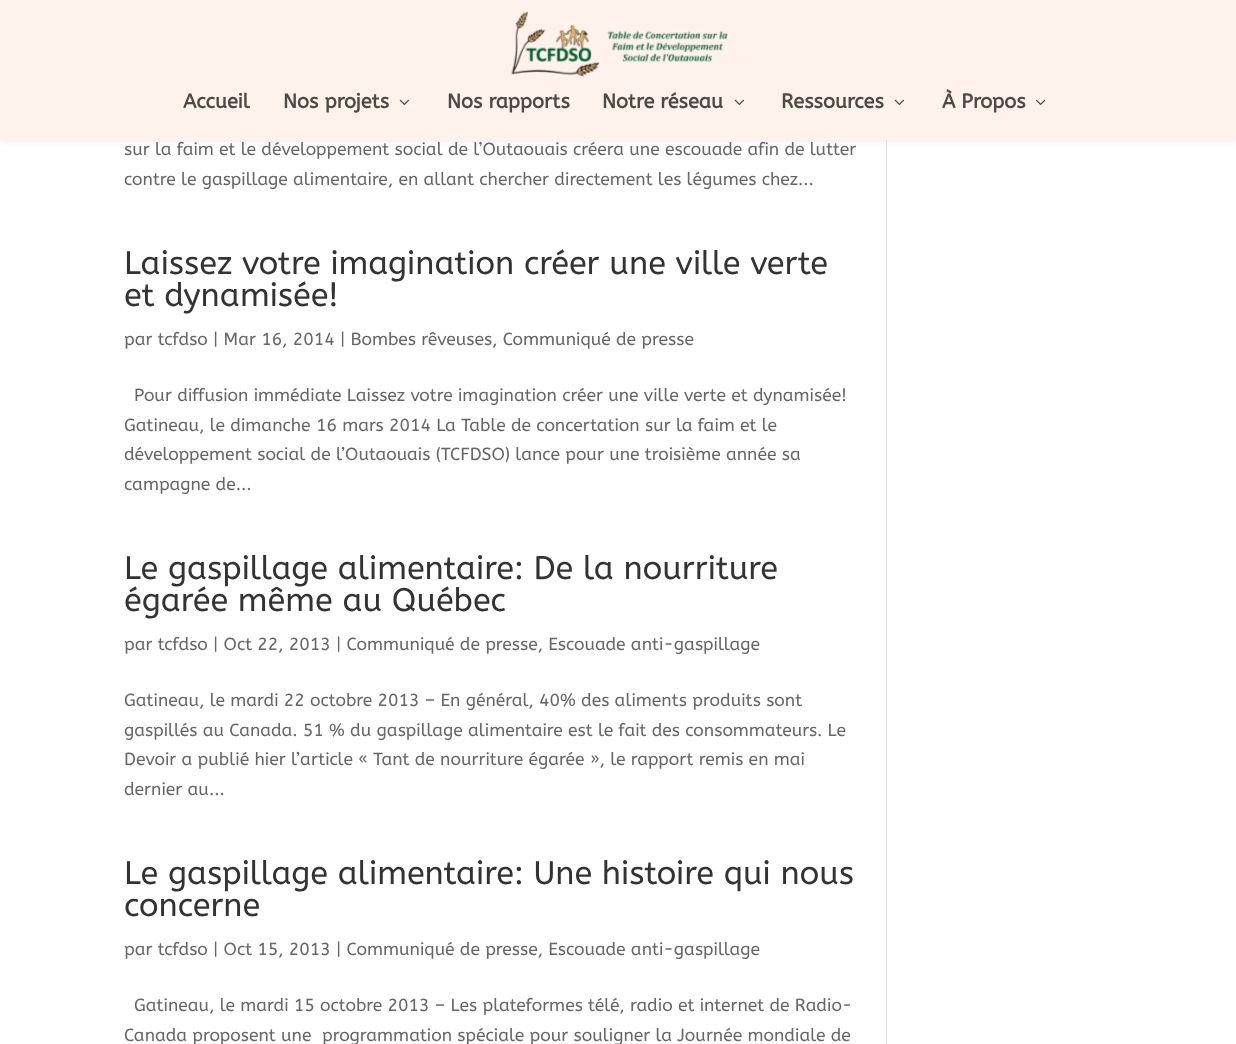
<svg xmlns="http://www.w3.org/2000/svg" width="1236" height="1044">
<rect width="100%" height="100%" fill="#fff"/>
<rect x="886" y="140" width="1" height="904" fill="#e2e2e2"/>
<rect width="1236" height="140" fill="#0000001a" filter="blur(4.5px)"/>
<rect width="1236" height="140" fill="#fff2ea"/>
<image x="510" y="11" width="218" height="66" href="media/1.png"/>
<text x="183" y="108" style="font-family:ABeeZee;font-size:20px;font-weight:bold;fill:#4d4946">Accueil</text>
<text x="283" y="108" style="font-family:ABeeZee;font-size:20px;font-weight:bold;fill:#4d4946">Nos projets</text>
<image x="399" y="99" width="10" height="6" href="media/2.png"/>
<text x="447" y="108" style="font-family:ABeeZee;font-size:20px;font-weight:bold;fill:#4d4946">Nos rapports</text>
<text x="602" y="108" style="font-family:ABeeZee;font-size:20px;font-weight:bold;fill:#4d4946">Notre réseau</text>
<image x="734" y="99" width="10" height="6" href="media/2.png"/>
<text x="781" y="108" style="font-family:ABeeZee;font-size:20px;font-weight:bold;fill:#4d4946">Ressources</text>
<image x="894" y="99" width="10" height="6" href="media/2.png"/>
<text x="942" y="108" style="font-family:ABeeZee;font-size:20px;font-weight:bold;fill:#4d4946">À Propos</text>
<image x="1036" y="99" width="10" height="6" href="media/3.png"/>
<text x="124" y="155" style="font-family:ABeeZee;font-size:17.5px;fill:#666">sur la faim et le développement social de l’Outaouais créera une escouade afin de lutter</text>
<text x="124" y="185" style="font-family:ABeeZee;font-size:17.5px;fill:#666">contre le gaspillage alimentaire, en allant chercher directement les légumes chez...</text>
<text x="124" y="274" style="font-family:ABeeZee;font-size:32.5px;fill:#333">Laissez votre imagination créer une ville verte</text>
<text x="124" y="306" style="font-family:ABeeZee;font-size:32.5px;fill:#333">et dynamisée!</text>
<text x="124" y="345" style="font-family:ABeeZee;font-size:17.5px;fill:#666">par tcfdso | Mar 16, 2014 | Bombes rêveuses, Communiqué de presse</text>
<text x="134" y="401" style="font-family:ABeeZee;font-size:17.5px;fill:#666">Pour diffusion immédiate Laissez votre imagination créer une ville verte et dynamisée!</text>
<text x="124" y="431" style="font-family:ABeeZee;font-size:17.5px;fill:#666">Gatineau, le dimanche 16 mars 2014 La Table de concertation sur la faim et le</text>
<text x="124" y="460" style="font-family:ABeeZee;font-size:17.5px;fill:#666">développement social de l’Outaouais (TCFDSO) lance pour une troisième année sa</text>
<text x="124" y="490" style="font-family:ABeeZee;font-size:17.5px;fill:#666">campagne de...</text>
<text x="124" y="579" style="font-family:ABeeZee;font-size:32.5px;fill:#333">Le gaspillage alimentaire: De la nourriture</text>
<text x="124" y="611" style="font-family:ABeeZee;font-size:32.5px;fill:#333">égarée même au Québec</text>
<text x="124" y="650" style="font-family:ABeeZee;font-size:17.5px;fill:#666">par tcfdso | Oct 22, 2013 | Communiqué de presse, Escouade anti-gaspillage</text>
<text x="124" y="706" style="font-family:ABeeZee;font-size:17.5px;fill:#666">Gatineau, le mardi 22 octobre 2013 – En général, 40% des aliments produits sont</text>
<text x="124" y="736" style="font-family:ABeeZee;font-size:17.5px;fill:#666">gaspillés au Canada. 51 % du gaspillage alimentaire est le fait des consommateurs. Le</text>
<text x="124" y="765" style="font-family:ABeeZee;font-size:17.5px;fill:#666">Devoir a publié hier l’article « Tant de nourriture égarée », le rapport remis en mai</text>
<text x="124" y="795" style="font-family:ABeeZee;font-size:17.5px;fill:#666">dernier au...</text>
<text x="124" y="884" style="font-family:ABeeZee;font-size:32.5px;fill:#333">Le gaspillage alimentaire: Une histoire qui nous</text>
<text x="124" y="916" style="font-family:ABeeZee;font-size:32.5px;fill:#333">concerne</text>
<text x="124" y="955" style="font-family:ABeeZee;font-size:17.5px;fill:#666">par tcfdso | Oct 15, 2013 | Communiqué de presse, Escouade anti-gaspillage</text>
<text x="134" y="1011" style="font-family:ABeeZee;font-size:17.5px;fill:#666">Gatineau, le mardi 15 octobre 2013 – Les plateformes télé, radio et internet de Radio-</text>
<text x="124" y="1041" style="font-family:ABeeZee;font-size:17.5px;fill:#666" xml:space="preserve">Canada proposent une  programmation spéciale pour souligner la Journée mondiale de</text>
</svg>
